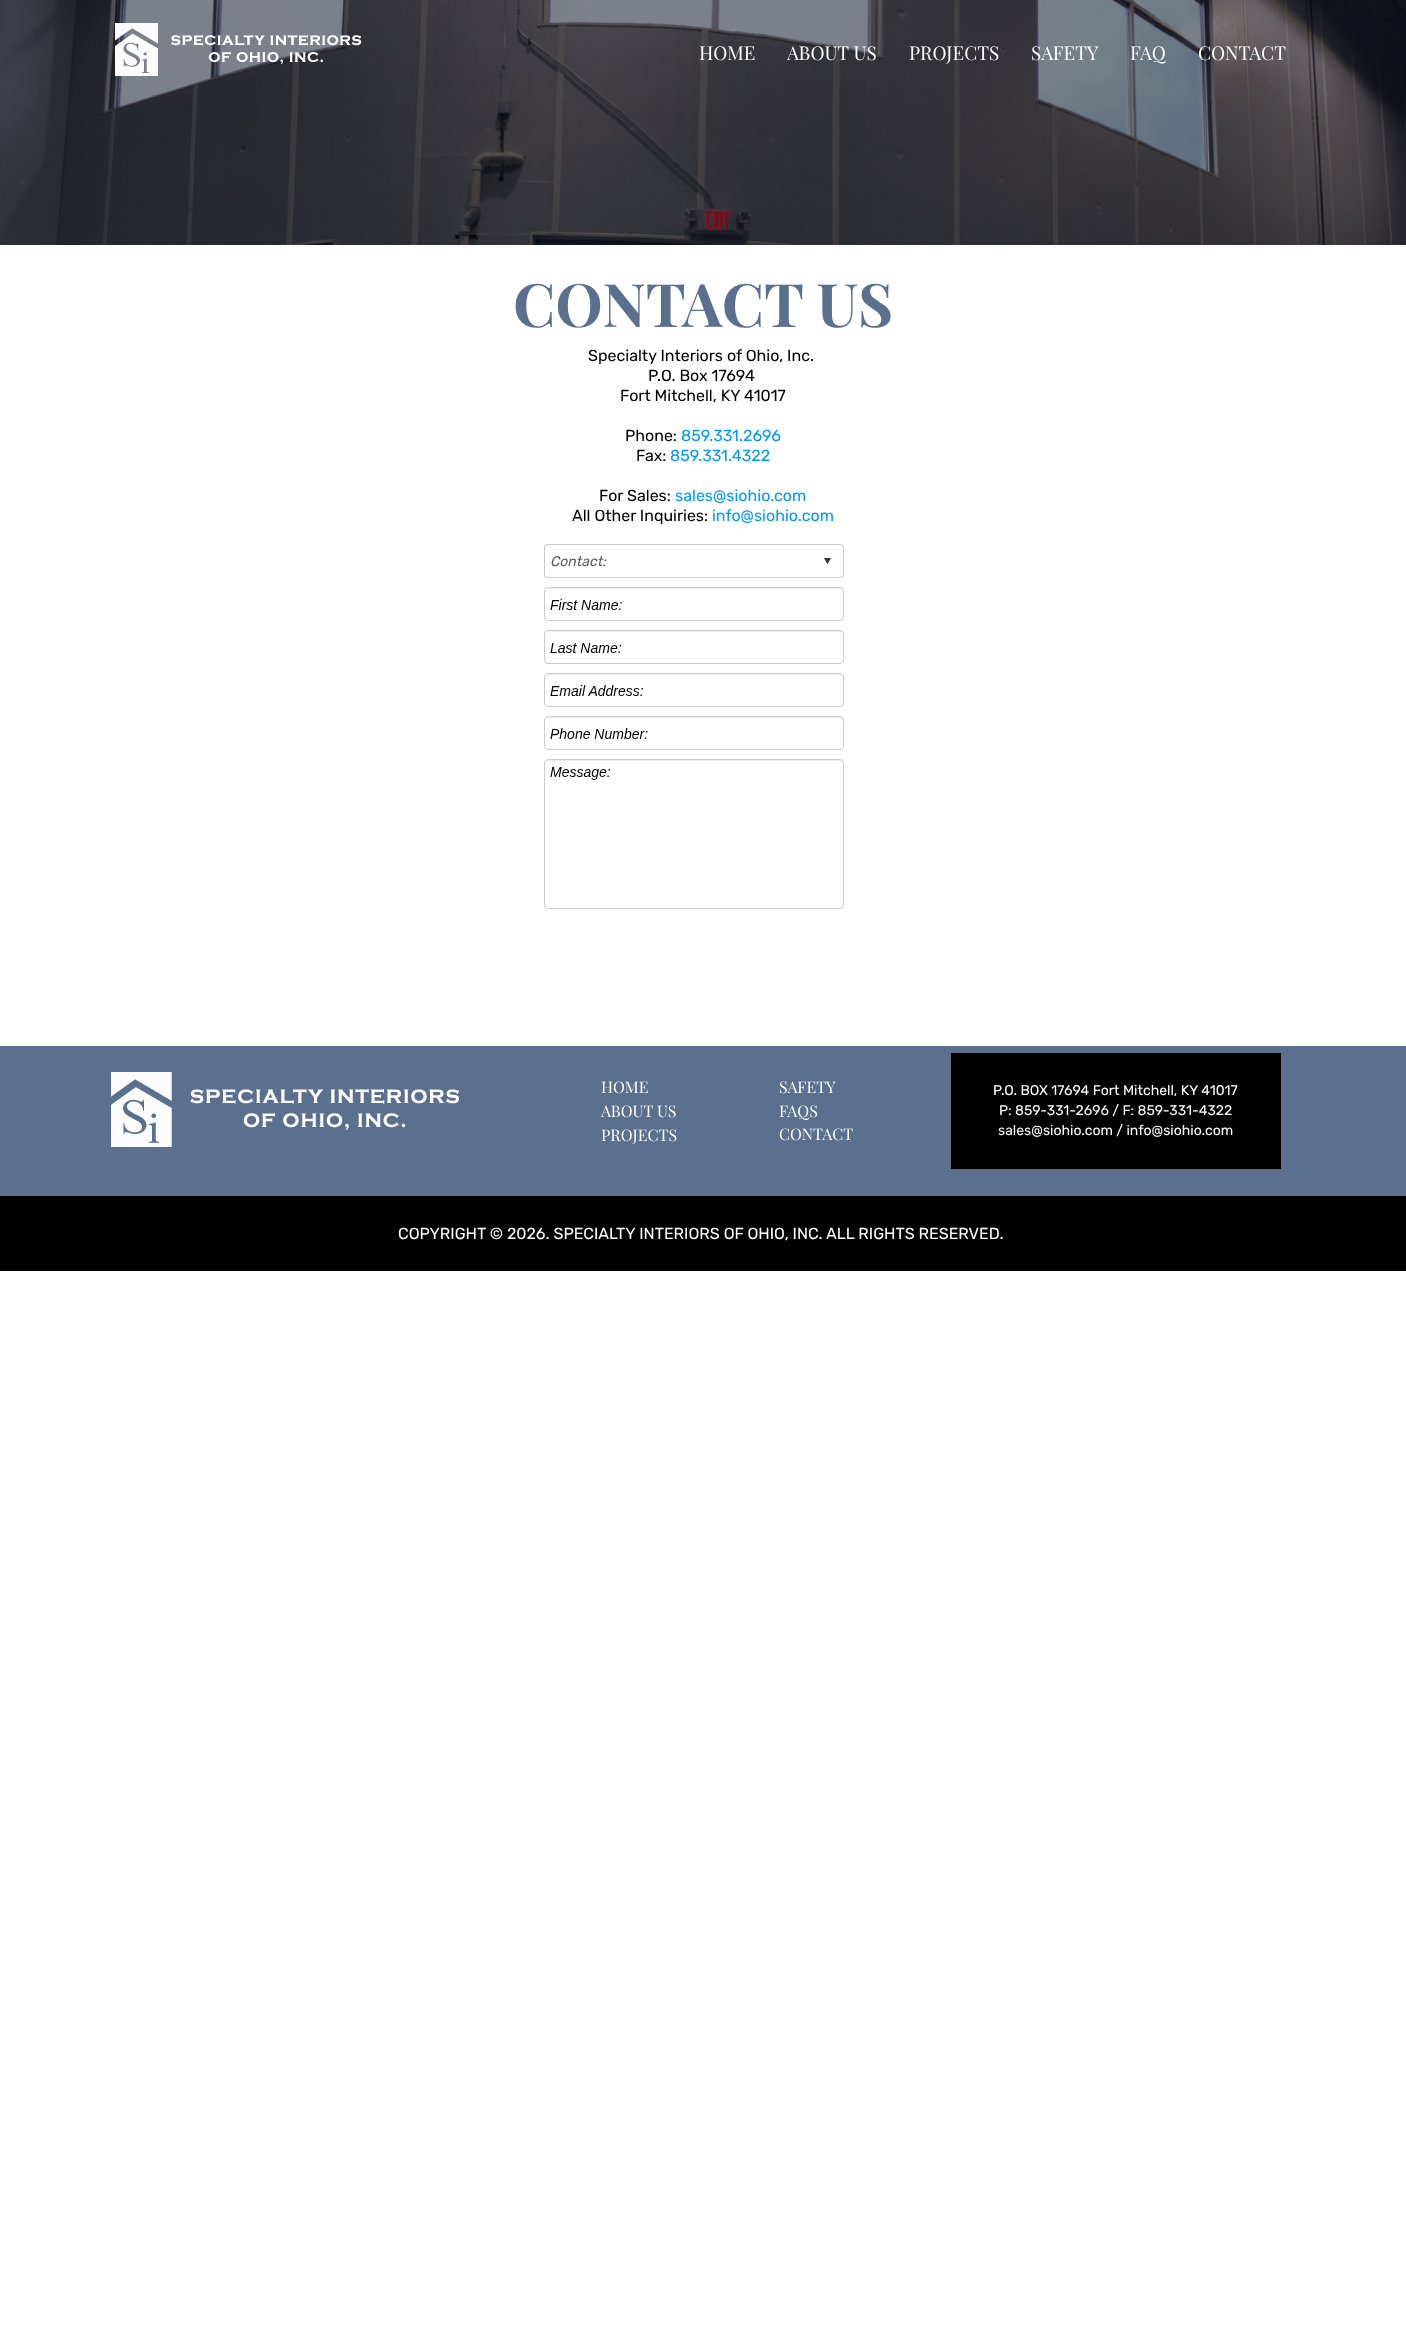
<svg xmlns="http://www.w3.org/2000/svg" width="1406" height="2332">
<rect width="100%" height="100%" fill="#fff"/>
<image x="0" y="0" width="1406" height="245" href="media/2.png"/>
<image x="115" y="23" width="246" height="53" href="media/1.png"/>
<text x="699" y="60" style="font-family:Playfair Display;font-size:19px;fill:#fff">HOME</text>
<text x="787" y="60" style="font-family:Playfair Display;font-size:19px;fill:#fff">ABOUT US</text>
<text x="909" y="60" style="font-family:Playfair Display;font-size:19px;fill:#fff">PROJECTS</text>
<text x="1031" y="60" style="font-family:Playfair Display;font-size:19px;fill:#fff">SAFETY</text>
<text x="1130" y="60" style="font-family:Playfair Display;font-size:19px;fill:#fff">FAQ</text>
<text x="1198" y="60" style="font-family:Playfair Display;font-size:19px;fill:#fff">CONTACT</text>
<text x="513" y="327" style="font-family:Playfair Display;font-size:60px;font-weight:bold;fill:#5b6f8f">CONTACT US</text>
<text x="588" y="361" style="font-family:Rubik;font-size:16px;fill:#000">Specialty Interiors of Ohio, Inc.</text>
<text x="648" y="381" style="font-family:Rubik;font-size:16px;fill:#000">P.O. Box 17694</text>
<text x="620" y="401" style="font-family:Rubik;font-size:16px;fill:#000">Fort Mitchell, KY 41017</text>
<text x="625" y="441" style="font-family:Rubik;font-size:16px;fill:#000">Phone:</text>
<text x="681" y="441" style="font-family:Rubik;font-size:16px;fill:#09f">859.331.2696</text>
<text x="636" y="461" style="font-family:Rubik;font-size:16px;fill:#000">Fax:</text>
<text x="670" y="461" style="font-family:Rubik;font-size:16px;fill:#09f">859.331.4322</text>
<text x="599" y="501" style="font-family:Rubik;font-size:16px;fill:#000">For Sales:</text>
<text x="675" y="501" style="font-family:Rubik;font-size:16px;fill:#09f">sales@siohio.com</text>
<text x="572" y="521" style="font-family:Rubik;font-size:16px;fill:#000">All Other Inquiries:</text>
<text x="712" y="521" style="font-family:Rubik;font-size:16px;fill:#09f">info@siohio.com</text>
<image x="544" y="544" width="300" height="365" href="media/3.png"/>
<rect y="1046" width="1406" height="150" fill="#5b6f8f"/>
<image x="111" y="1072" width="348" height="75" href="media/4.png"/>
<text x="601" y="1093" style="font-family:Playfair Display;font-size:16px;fill:#fff">HOME</text>
<text x="779" y="1093" style="font-family:Playfair Display;font-size:16px;fill:#fff">SAFETY</text>
<text x="601" y="1117" style="font-family:Playfair Display;font-size:16px;fill:#fff">ABOUT US</text>
<text x="779" y="1117" style="font-family:Playfair Display;font-size:16px;fill:#fff">FAQS</text>
<text x="601" y="1141" style="font-family:Playfair Display;font-size:16px;fill:#fff">PROJECTS</text>
<text x="779" y="1140" style="font-family:Playfair Display;font-size:16px;fill:#fff">CONTACT</text>
<rect x="951" y="1053" width="330" height="116" fill="#000"/>
<text x="993" y="1095" style="font-family:Rubik;font-size:14px;fill:#fff">P.O. BOX 17694 Fort Mitchell, KY 41017</text>
<text x="999" y="1115" style="font-family:Rubik;font-size:14px;fill:#fff">P: 859-331-2696 / F: 859-331-4322</text>
<text x="998" y="1135" style="font-family:Rubik;font-size:14px;fill:#fff">sales@siohio.com / info@siohio.com</text>
<rect y="1196" width="1406" height="75" fill="#000"/>
<text x="398" y="1239" style="font-family:Rubik;font-size:16px;fill:#fff">COPYRIGHT © 2026. SPECIALTY INTERIORS OF OHIO, INC. ALL RIGHTS RESERVED.</text>
</svg>
